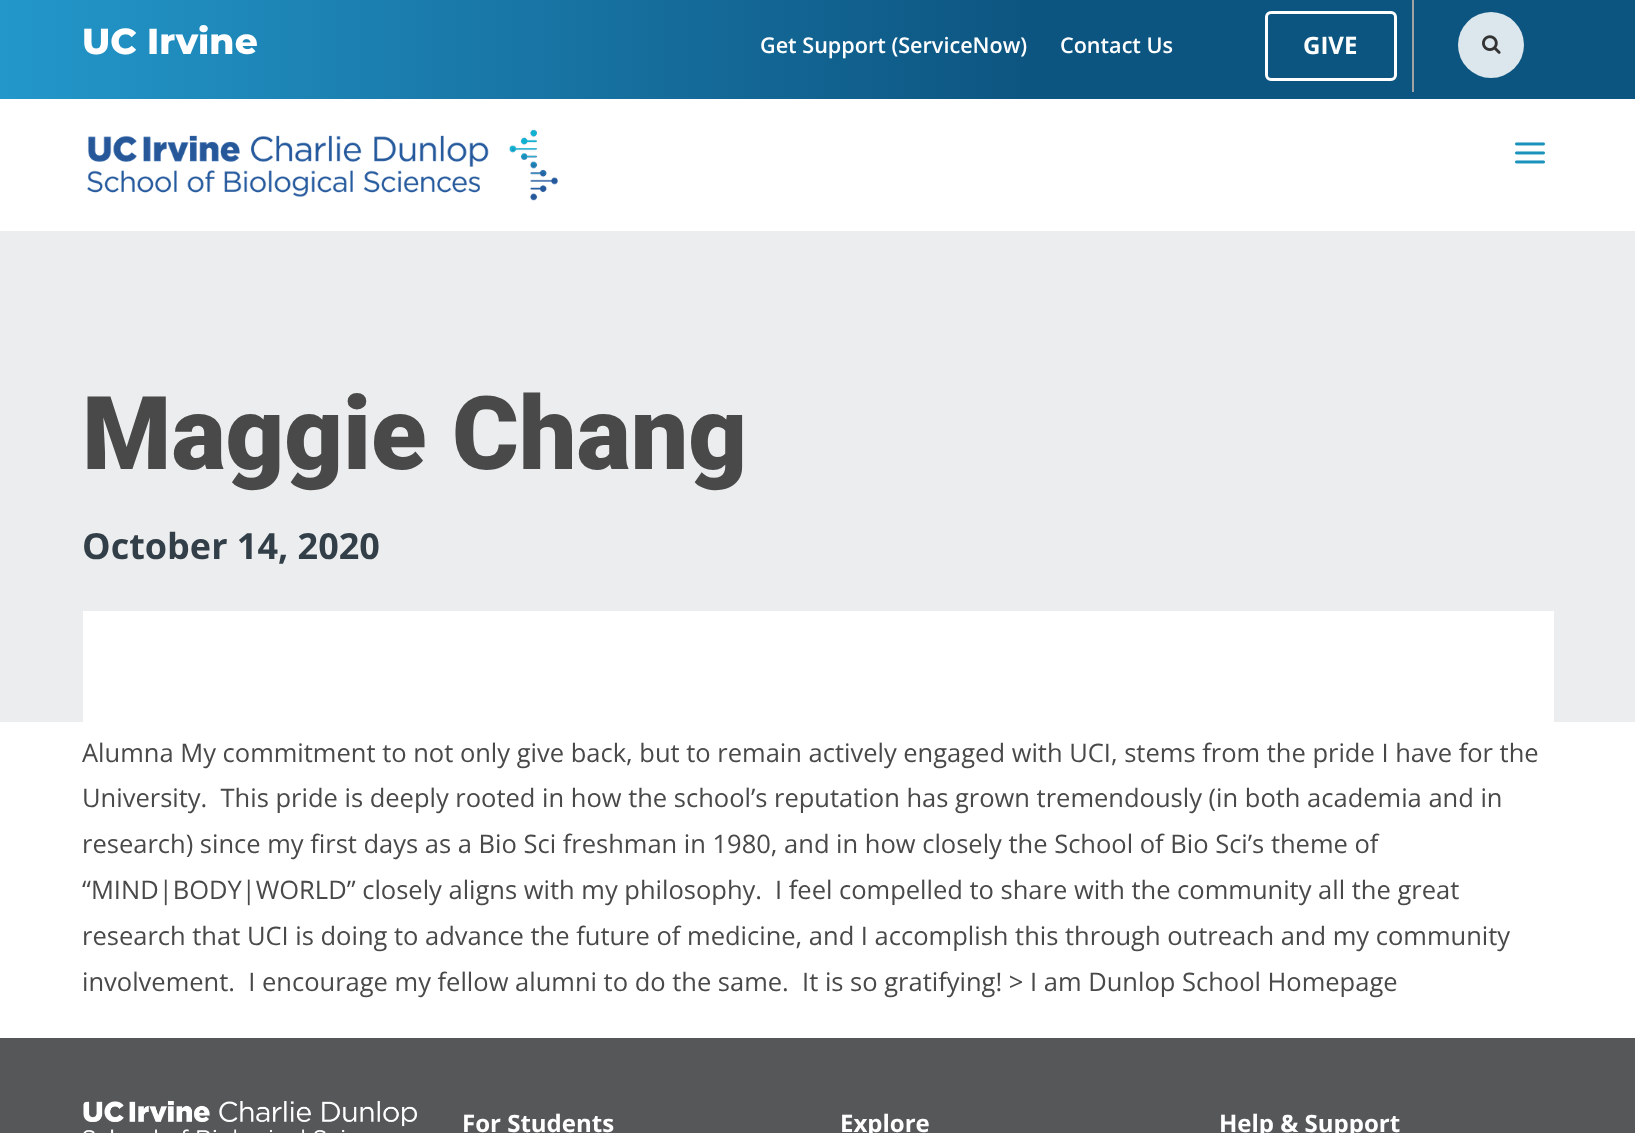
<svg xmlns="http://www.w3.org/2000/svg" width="1635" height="1133">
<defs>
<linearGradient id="g1" gradientUnits="userSpaceOnUse" x1="0" y1="50" x2="1635" y2="49"><stop offset="0" stop-color="#2397ca"/><stop offset="0.63" stop-color="#0d5581"/></linearGradient>
</defs>
<rect width="100%" height="100%" fill="#fff"/>
<rect width="1635" height="99" fill="url(#g1)"/>
<text x="82" y="54" style="font-family:Montserrat;font-size:36px;font-weight:800;fill:#fff">UC Irvine</text>
<text x="760" y="53" style="font-family:Open Sans;font-size:21.6px;font-weight:600;fill:#fff">Get Support (ServiceNow)</text>
<text x="1060" y="53" style="font-family:Open Sans;font-size:21.6px;font-weight:600;fill:#fff">Contact Us</text>
<rect x="1412" width="2" height="92" fill="#a2a2a2"/>
<rect x="1266.5" y="12.5" width="129" height="67" rx="4.5" fill="none" stroke="#fff" stroke-width="3"/>
<text x="1303" y="54" style="font-family:Open Sans;font-size:24px;font-weight:bold;fill:#fff">GIVE</text>
<circle cx="1491" cy="45" r="33" fill="#dbe7ec"/>
<image x="1482" y="35" width="19" height="19" href="media/1.png"/>
<image x="86" y="129" width="472" height="72" href="media/2.png"/>
<image x="1515" y="142" width="30" height="22" href="media/3.png"/>
<rect y="231" width="1635" height="491" fill="#ebedee"/>
<text x="82" y="469" style="font-family:Roboto;font-size:102px;font-weight:900;fill:#494949">Maggie Chang</text>
<text x="82" y="559" style="font-family:Open Sans;font-size:36px;font-weight:bold;fill:#333f48">October 14, 2020</text>
<rect x="83" y="611" width="1471" height="111" fill="#fff"/>
<text x="82" y="762" style="font-family:Open Sans;font-size:25.5px;fill:#494949">Alumna My commitment to not only give back, but to remain actively engaged with UCI, stems from the pride I have for the</text>
<text x="82" y="807" style="font-family:Open Sans;font-size:25.5px;fill:#494949" xml:space="preserve">University.  This pride is deeply rooted in how the school’s reputation has grown tremendously (in both academia and in</text>
<text x="82" y="853" style="font-family:Open Sans;font-size:25.5px;fill:#494949">research) since my first days as a Bio Sci freshman in 1980, and in how closely the School of Bio Sci’s theme of</text>
<text x="82" y="899" style="font-family:Open Sans;font-size:25.5px;fill:#494949">“MIND|BODY|WORLD” closely aligns with my philosophy.</text>
<text x="775" y="899" style="font-family:Open Sans;font-size:25.5px;fill:#494949">I feel compelled to share with the community all the great</text>
<text x="82" y="945" style="font-family:Open Sans;font-size:25.5px;fill:#494949">research that UCI is doing to advance the future of medicine, and I accomplish this through outreach and my community</text>
<text x="82" y="991" style="font-family:Open Sans;font-size:25.5px;fill:#494949" xml:space="preserve">involvement.  I encourage my fellow alumni to do the same.  It is so gratifying! &gt; I am Dunlop School Homepage</text>
<rect y="1038" width="1635" height="95" fill="#555759"/>
<image x="83" y="1101" width="334" height="32" href="media/4.png"/>
<text x="462" y="1132" style="font-family:Open Sans;font-size:24px;font-weight:bold;fill:#fff">For Students</text>
<text x="840" y="1132" style="font-family:Open Sans;font-size:24px;font-weight:bold;fill:#fff">Explore</text>
<text x="1219" y="1132" style="font-family:Open Sans;font-size:24px;font-weight:bold;fill:#fff">Help &amp; Support</text>
</svg>
